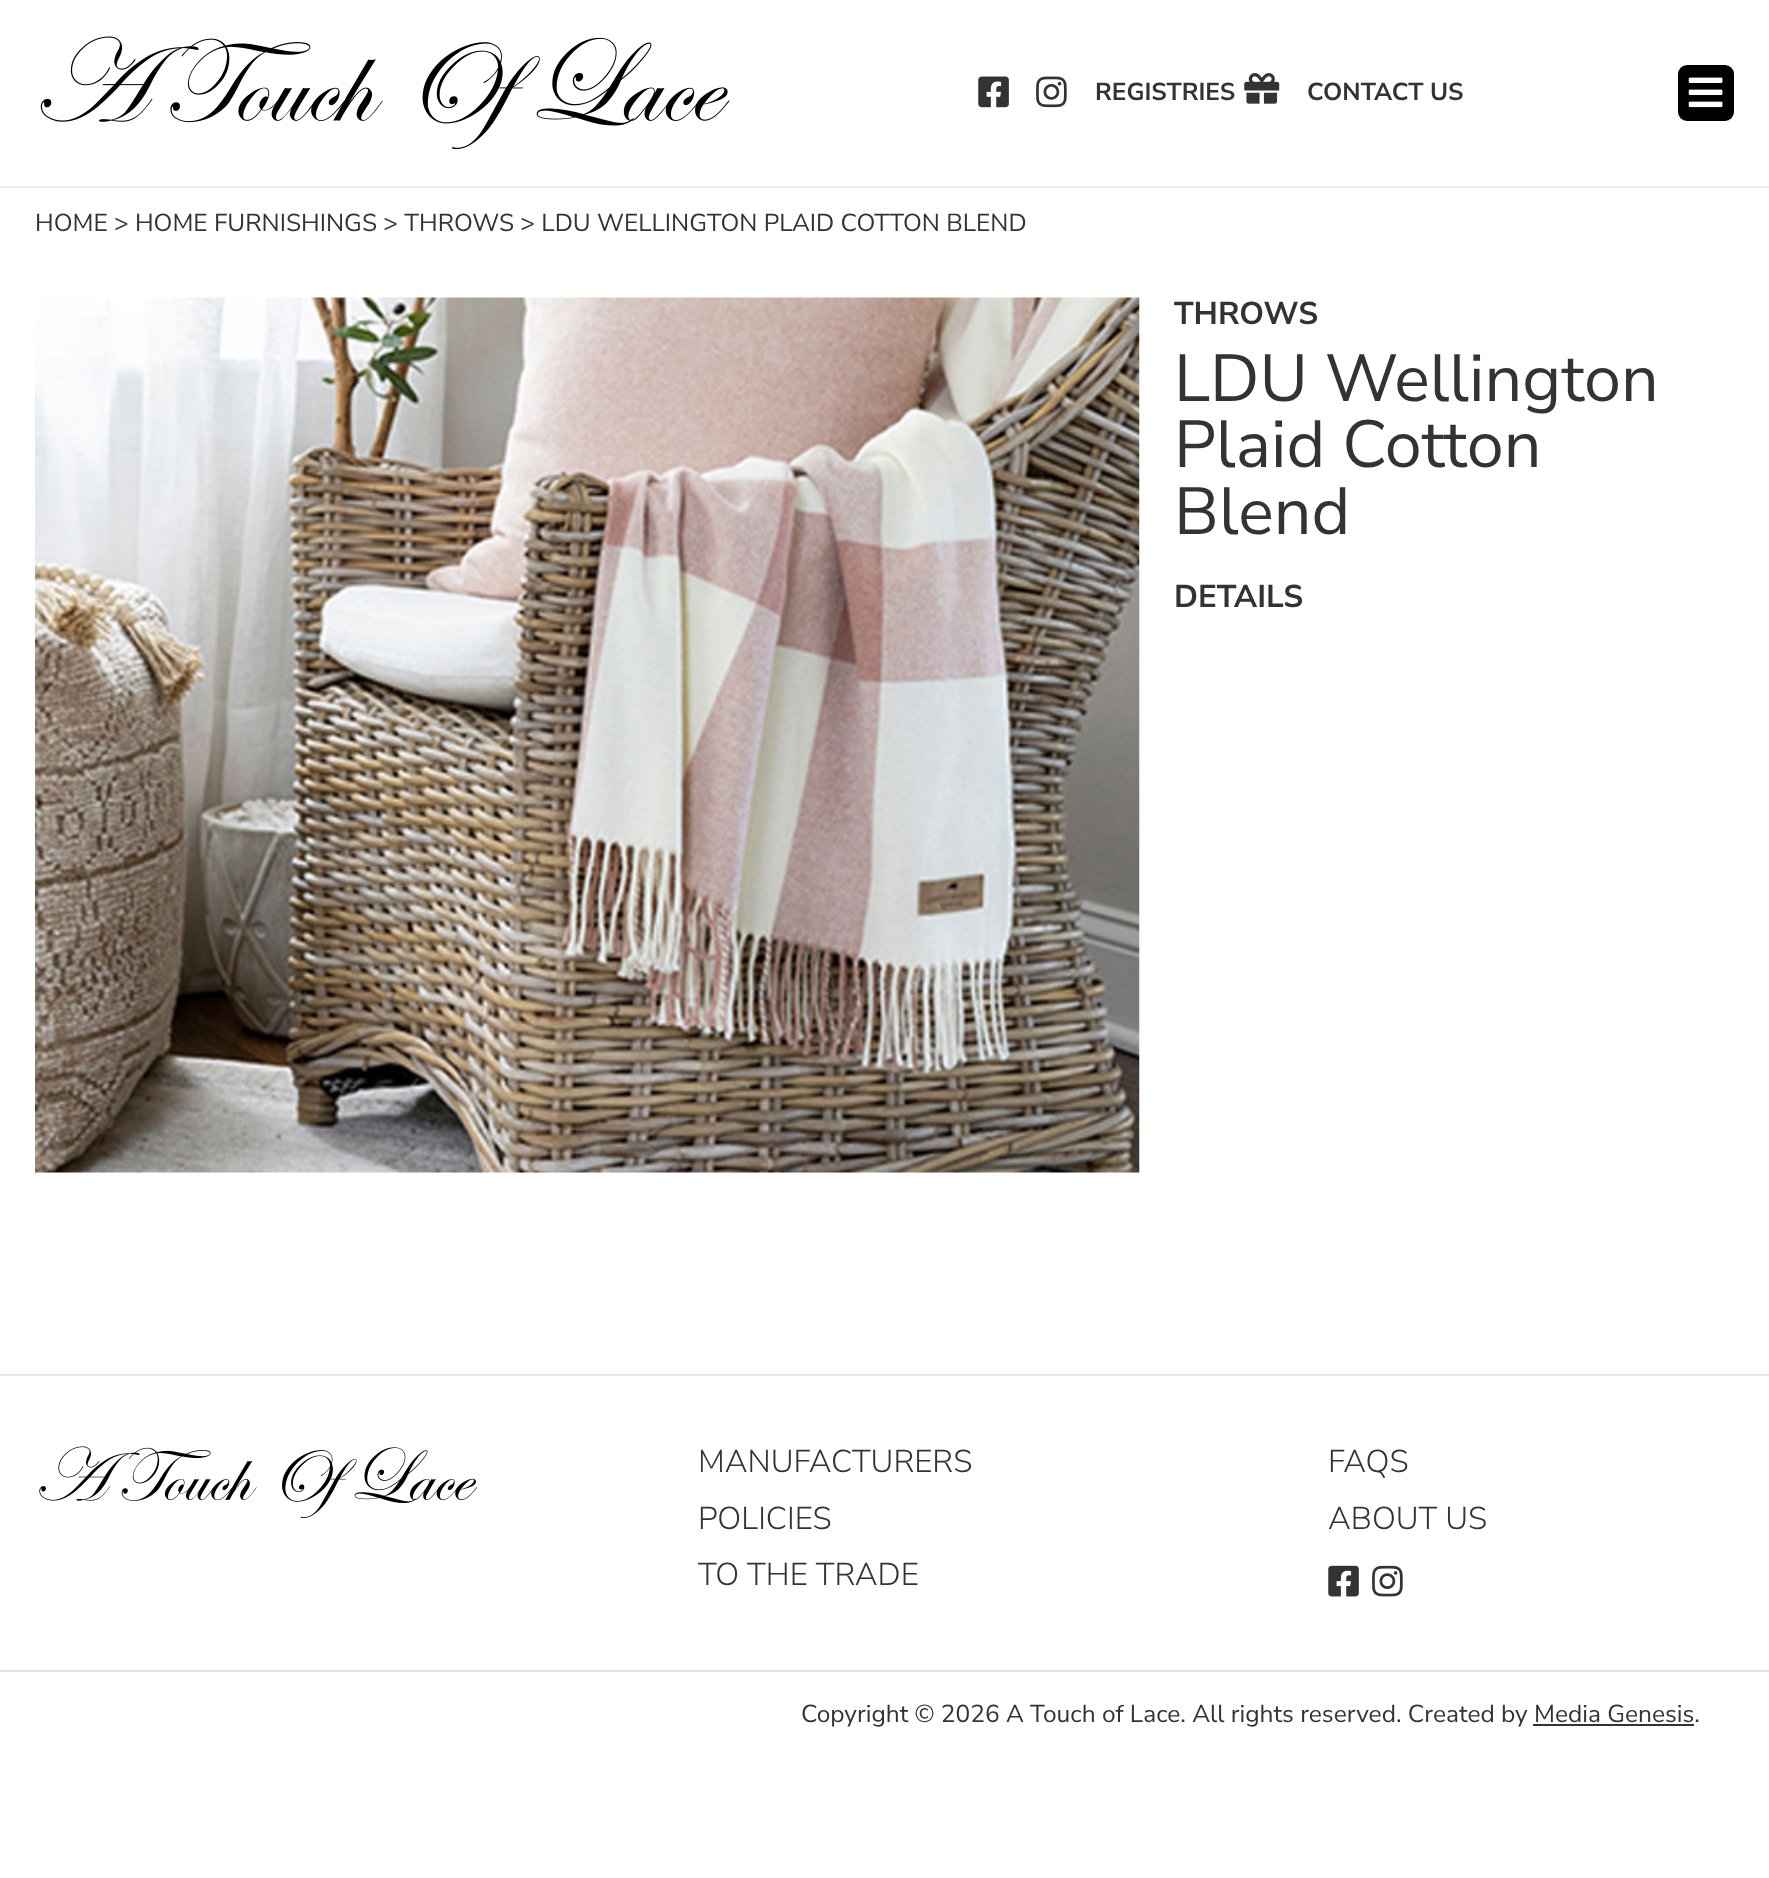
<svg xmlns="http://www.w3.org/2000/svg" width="1769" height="1878">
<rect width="100%" height="100%" fill="#fff"/>
<rect y="186" width="1769" height="2" fill="#ebebeb"/>
<image x="40" y="36" width="690" height="114" href="media/1.png"/>
<image x="978" y="76" width="31" height="32" href="media/2.png"/>
<image x="1036" y="76" width="31" height="32" href="media/3.png"/>
<text x="1095" y="100" style="font-family:Nunito Sans;font-size:24.5px;font-weight:bold;fill:#333">REGISTRIES</text>
<image x="1244" y="73" width="36" height="31" href="media/4.png"/>
<text x="1307" y="100" style="font-family:Nunito Sans;font-size:24.5px;font-weight:bold;fill:#333">CONTACT US</text>
<rect x="1678" y="65" width="56" height="56" rx="9" fill="#000"/>
<image x="1688" y="77" width="35" height="31" href="media/5.png"/>
<text x="35" y="231" style="font-family:Nunito Sans;font-size:24.5px;fill:#333">HOME &gt; HOME FURNISHINGS &gt; THROWS &gt; LDU WELLINGTON PLAID COTTON BLEND</text>
<image x="35" y="297" width="1105" height="876" href="media/6.png"/>
<text x="1174" y="324" style="font-family:Nunito Sans;font-size:31.5px;font-weight:bold;fill:#333">THROWS</text>
<text x="1174" y="401" style="font-family:Nunito Sans;font-size:66.5px;fill:#333">LDU Wellington</text>
<text x="1174" y="467" style="font-family:Nunito Sans;font-size:66.5px;fill:#333">Plaid Cotton</text>
<text x="1174" y="534" style="font-family:Nunito Sans;font-size:66.5px;fill:#333">Blend</text>
<text x="1174" y="607" style="font-family:Nunito Sans;font-size:31.5px;font-weight:bold;fill:#333">DETAILS</text>
<rect y="1374" width="1769" height="2" fill="#e8e8e8"/>
<image x="39" y="1446" width="439" height="73" href="media/7.png"/>
<text x="698" y="1472" style="font-family:Nunito Sans;font-size:31.5px;font-weight:300;fill:#333">MANUFACTURERS</text>
<text x="1328" y="1472" style="font-family:Nunito Sans;font-size:31.5px;font-weight:300;fill:#333">FAQS</text>
<text x="698" y="1529" style="font-family:Nunito Sans;font-size:31.5px;font-weight:300;fill:#333">POLICIES</text>
<text x="1328" y="1529" style="font-family:Nunito Sans;font-size:31.5px;font-weight:300;fill:#333">ABOUT US</text>
<text x="698" y="1585" style="font-family:Nunito Sans;font-size:31.5px;font-weight:300;fill:#333">TO THE TRADE</text>
<image x="1328" y="1565" width="31" height="32" href="media/8.png"/>
<image x="1372" y="1565" width="31" height="32" href="media/9.png"/>
<rect y="1670" width="1769" height="2" fill="#e0e0e0"/>
<text x="801" y="1722" style="font-family:Nunito Sans;font-size:24.5px;fill:#333">Copyright © 2026 A Touch of Lace. All rights reserved. Created by Media Genesis.</text>
<rect x="1533" y="1724" width="161" height="2" fill="#333"/>
</svg>
